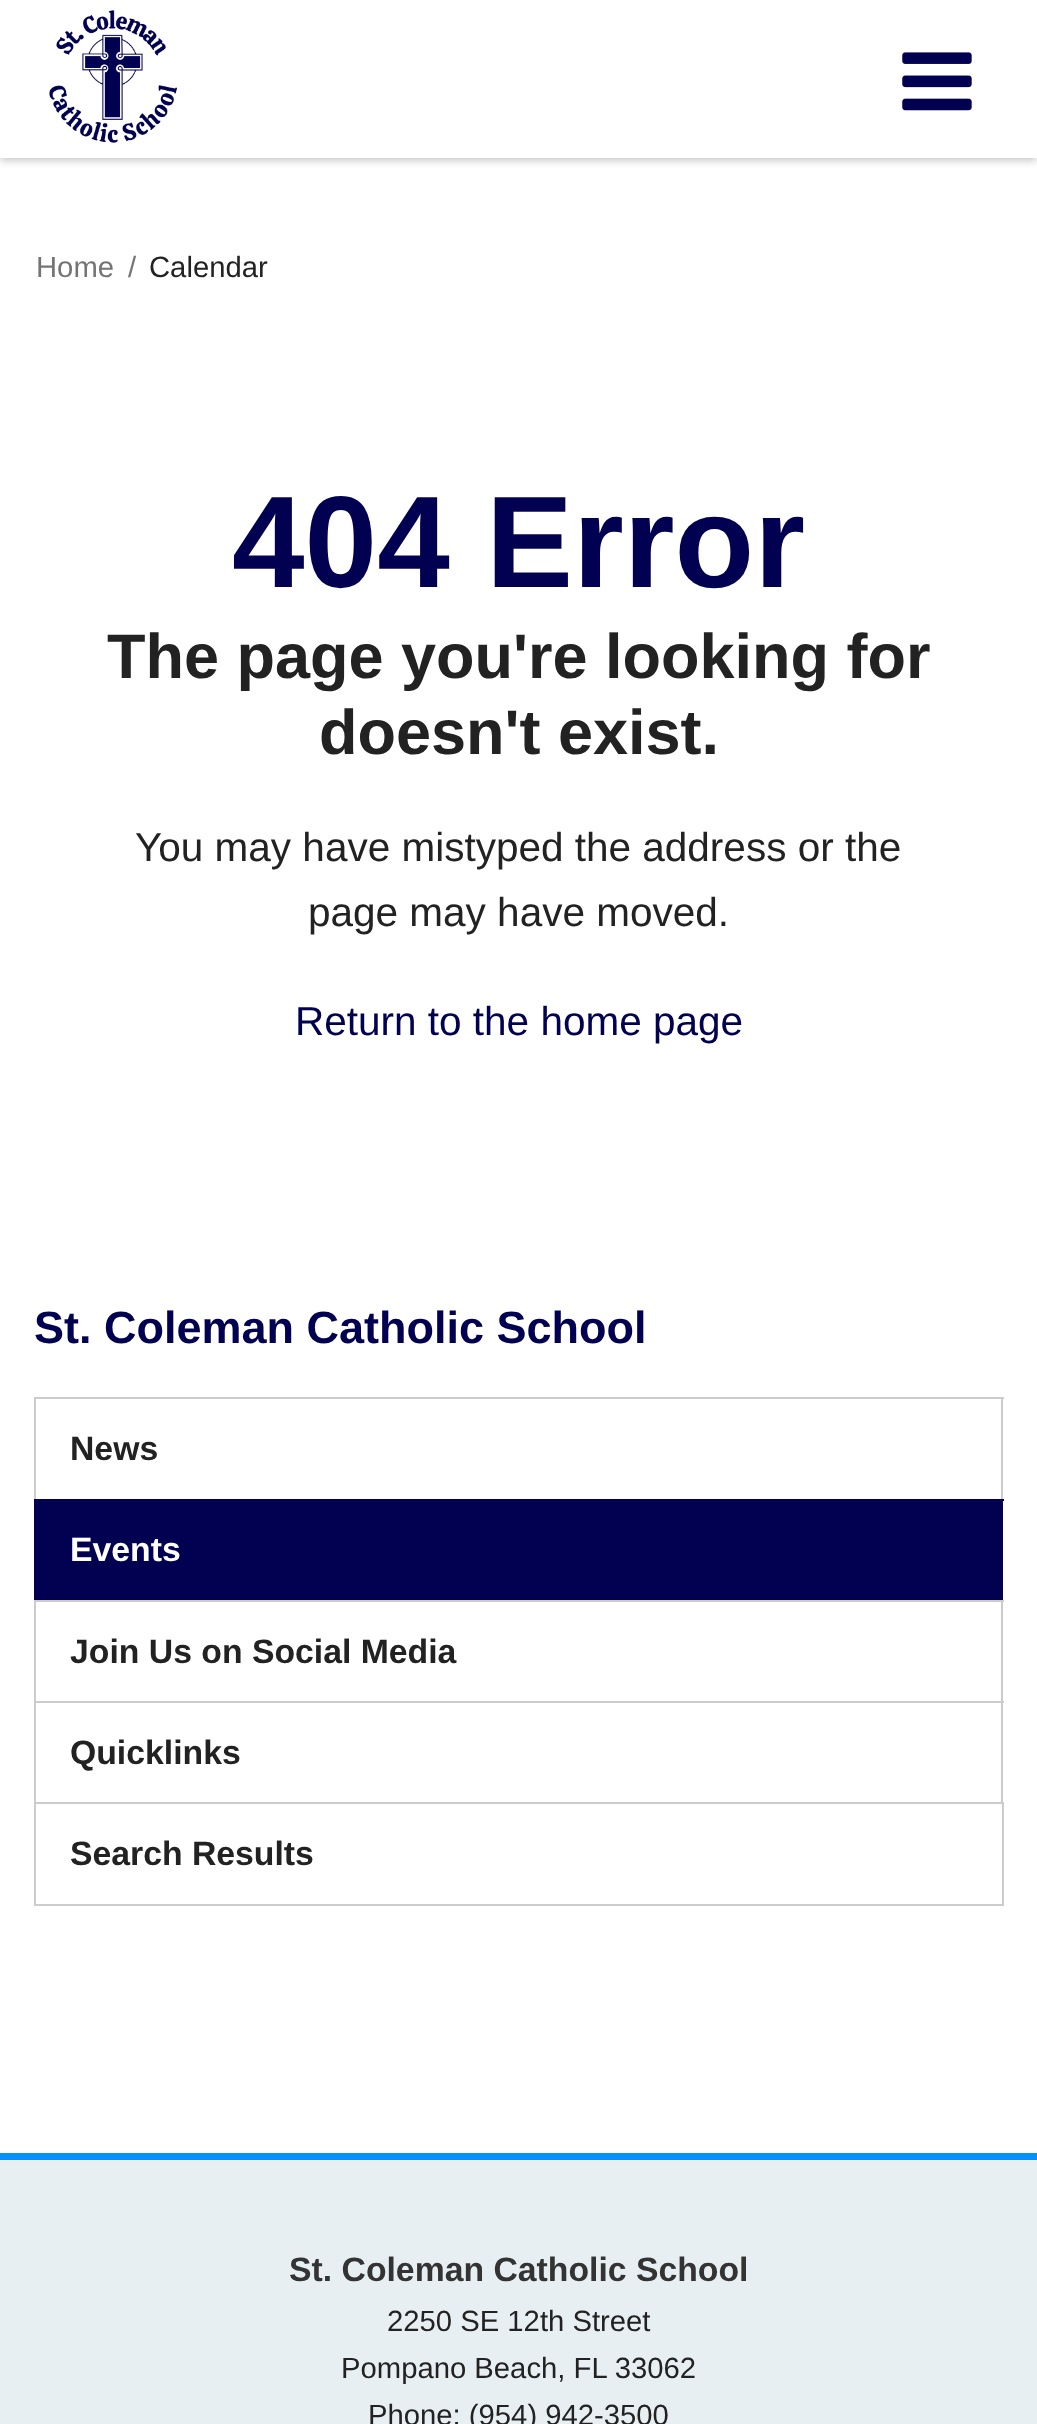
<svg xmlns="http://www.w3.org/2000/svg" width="1037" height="2424">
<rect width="100%" height="100%" fill="#fff"/>
<rect y="2" width="1037" height="158" fill="#00000040" filter="blur(4.5px)"/>
<rect width="1037" height="158" fill="#fff"/>
<image x="49" y="10" width="129" height="133" href="media/1.png"/>
<image x="902" y="52" width="70" height="59" href="media/2.png"/>
<text x="36" y="277" style="font-family:Liberation Sans;font-size:29.25px;fill:#747474">Home</text>
<text x="128" y="277" style="font-family:Liberation Sans;font-size:29.25px;fill:#747474">/</text>
<text x="149" y="277" style="font-family:Liberation Sans;font-size:29.25px;fill:#222">Calendar</text>
<text x="232" y="587" style="font-family:Liberation Sans;font-size:130.5px;font-weight:bold;fill:#020050">404 Error</text>
<text x="107" y="678" style="font-family:Liberation Sans;font-size:63px;font-weight:bold;fill:#222">The page you're looking for</text>
<text x="319" y="754" style="font-family:Liberation Sans;font-size:63px;font-weight:bold;fill:#222">doesn't exist.</text>
<text x="135" y="861" style="font-family:Liberation Sans;font-size:40.5px;fill:#222">You may have mistyped the address or the</text>
<text x="308" y="926" style="font-family:Liberation Sans;font-size:40.5px;fill:#222">page may have moved.</text>
<text x="295" y="1035" style="font-family:Liberation Sans;font-size:40.5px;fill:#020050">Return to the home page</text>
<text x="34" y="1343" style="font-family:Liberation Sans;font-size:45px;font-weight:bold;fill:#020050">St. Coleman Catholic School</text>
<rect x="34" y="1397" width="970" height="2" fill="#ccc"/>
<rect x="1001" y="1397" width="2" height="102" fill="#ccc"/>
<rect x="34" y="1397" width="2" height="102" fill="#ccc"/>
<text x="70" y="1460" style="font-family:Liberation Sans;font-size:33.75px;font-weight:bold;fill:#222">News</text>
<rect x="34" y="1499" width="970" height="2" fill="#020050"/>
<rect x="1001" y="1499" width="2" height="101" fill="#020050"/>
<rect x="34" y="1499" width="2" height="101" fill="#020050"/>
<rect x="36" y="1501" width="965" height="99" fill="#020050"/>
<text x="70" y="1561" style="font-family:Liberation Sans;font-size:33.75px;font-weight:bold;fill:#fff">Events</text>
<rect x="34" y="1600" width="970" height="2" fill="#ccc"/>
<rect x="1001" y="1600" width="2" height="101" fill="#ccc"/>
<rect x="34" y="1600" width="2" height="101" fill="#ccc"/>
<text x="70" y="1663" style="font-family:Liberation Sans;font-size:33.75px;font-weight:bold;fill:#222">Join Us on Social Media</text>
<rect x="34" y="1701" width="970" height="2" fill="#ccc"/>
<rect x="1001" y="1701" width="2" height="101" fill="#ccc"/>
<rect x="34" y="1701" width="2" height="101" fill="#ccc"/>
<text x="70" y="1764" style="font-family:Liberation Sans;font-size:33.75px;font-weight:bold;fill:#222">Quicklinks</text>
<rect x="35" y="1803" width="968" height="102" fill="none" stroke="#ccc" stroke-width="2"/>
<text x="70" y="1865" style="font-family:Liberation Sans;font-size:33.75px;font-weight:bold;fill:#222">Search Results</text>
<rect y="2160" width="1037" height="264" fill="#e7eff2"/>
<rect y="2153" width="1037" height="7" fill="#0091fe"/>
<text x="289" y="2281" style="font-family:Liberation Sans;font-size:33.75px;font-weight:bold;fill:#333">St. Coleman Catholic School</text>
<text x="387" y="2331" style="font-family:Liberation Sans;font-size:29.25px;fill:#222">2250 SE 12th Street</text>
<text x="341" y="2378" style="font-family:Liberation Sans;font-size:29.25px;fill:#222">Pompano Beach, FL 33062</text>
<text x="368" y="2425" style="font-family:Liberation Sans;font-size:29.25px;fill:#222">Phone: (954) 942-3500</text>
</svg>
